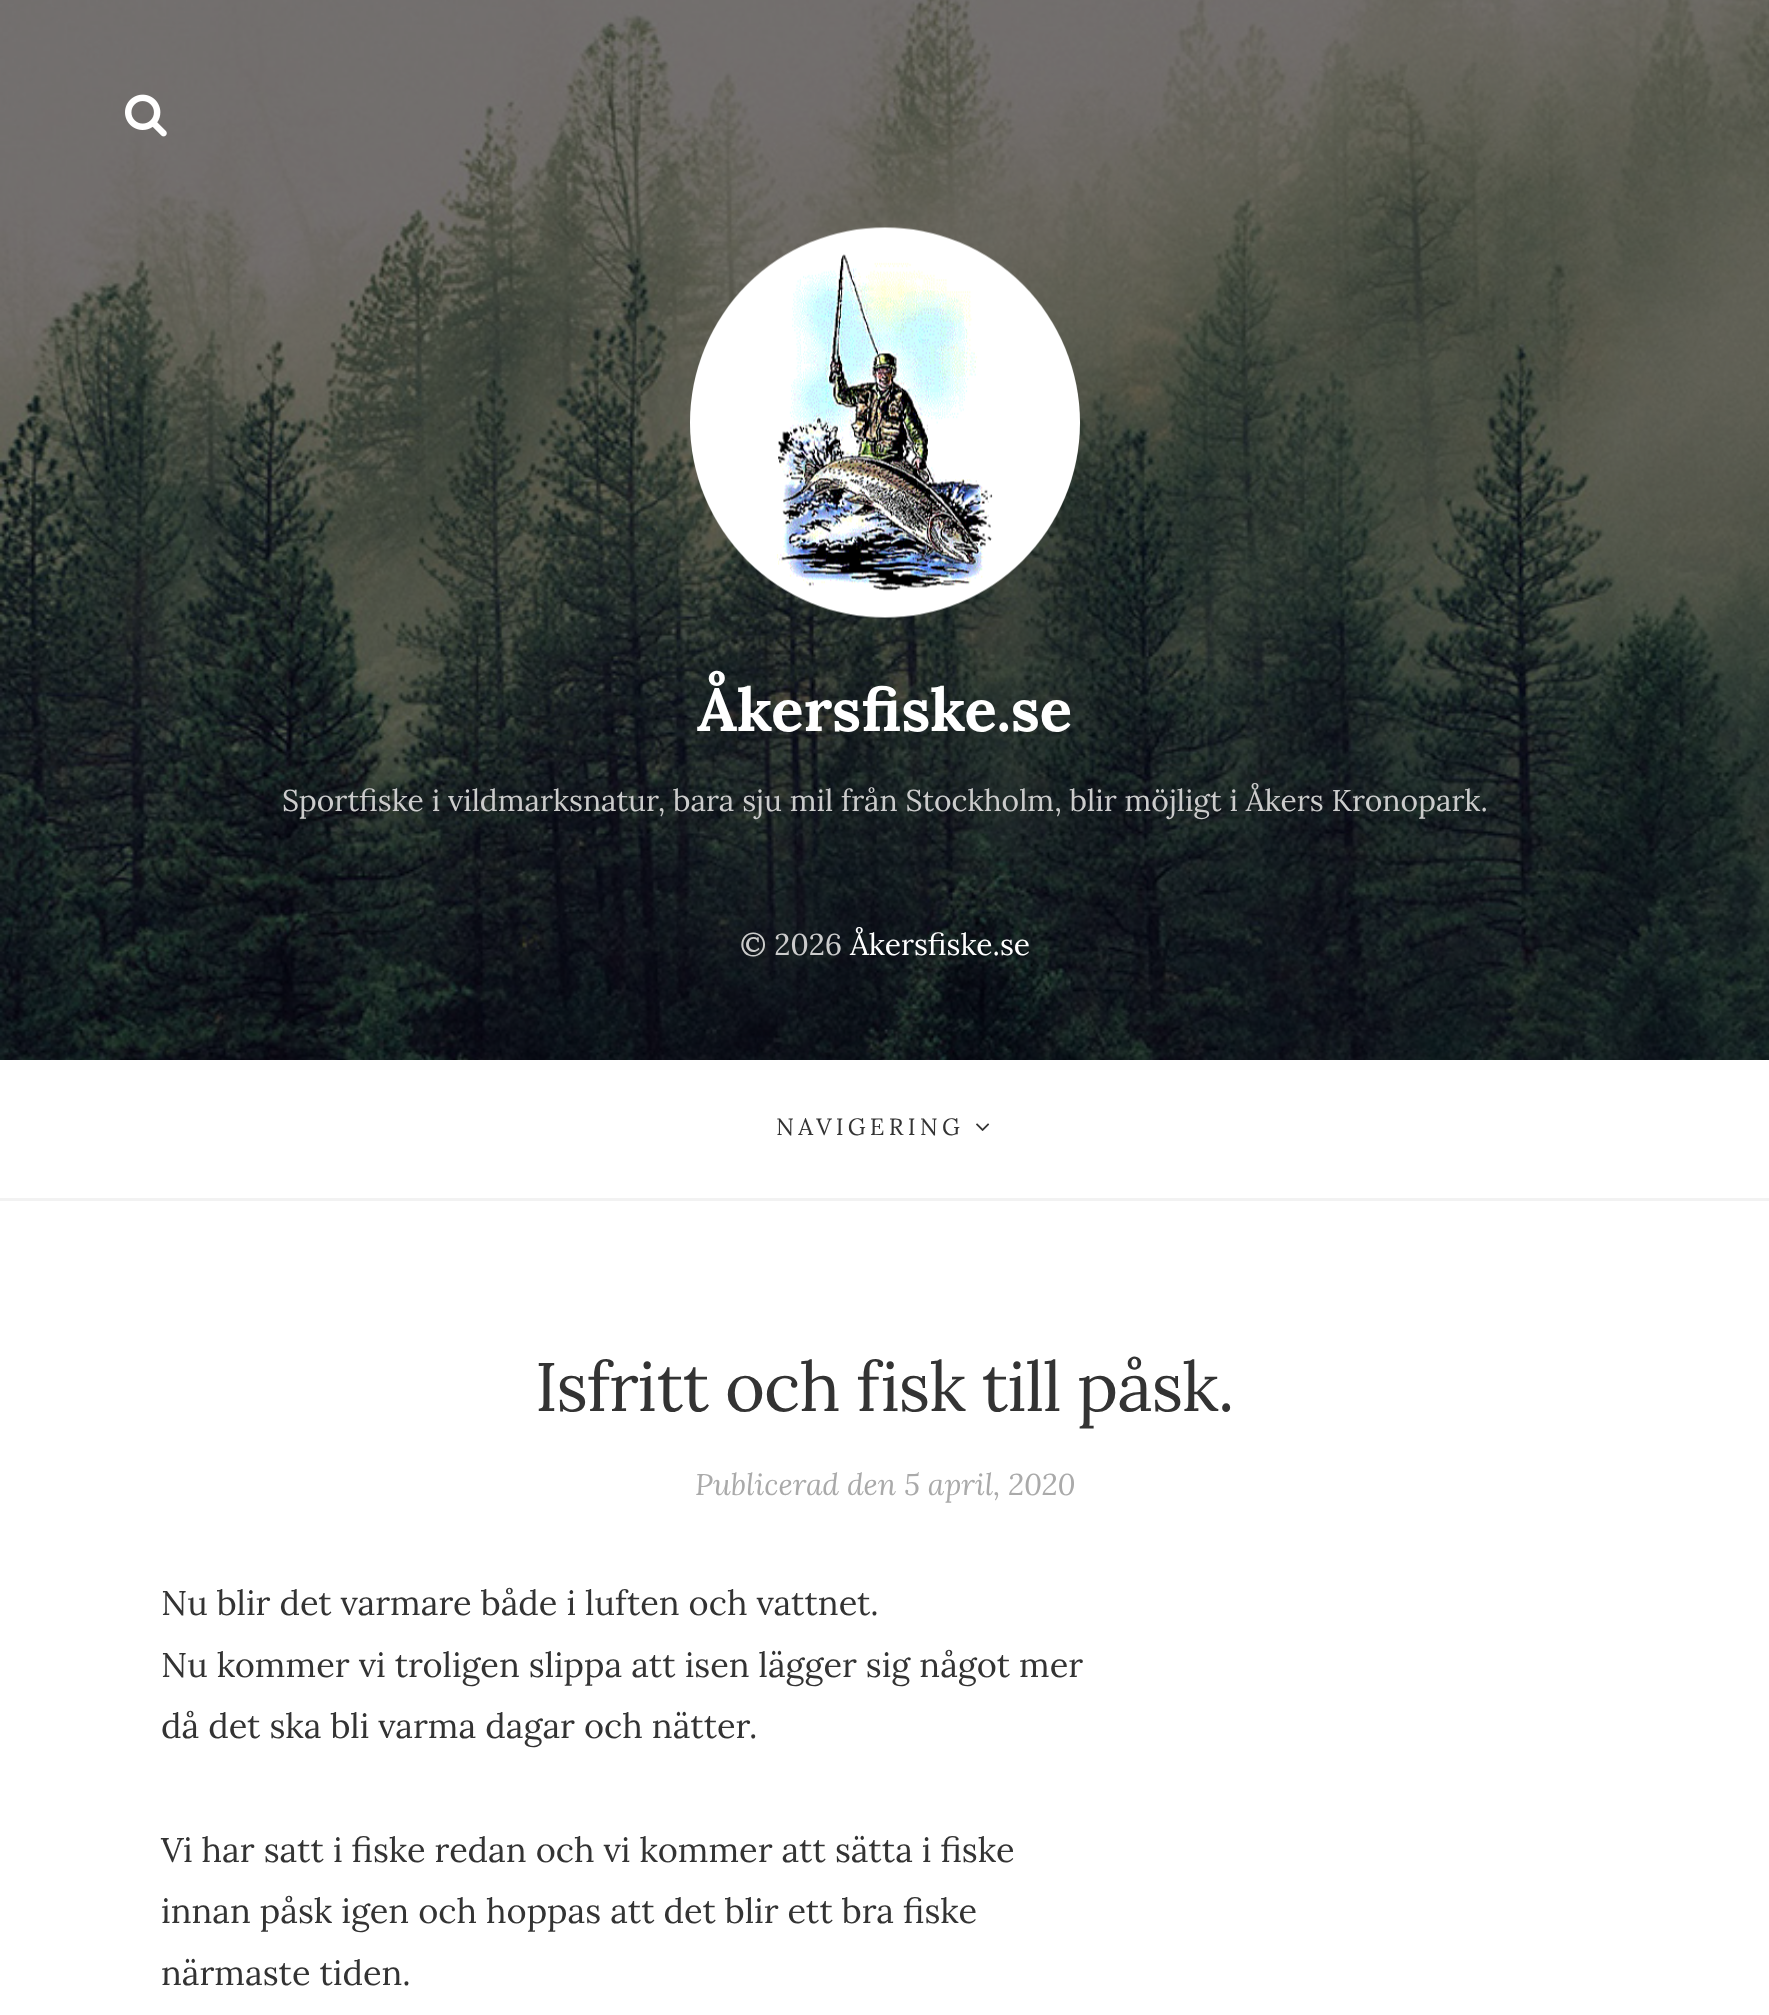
<svg xmlns="http://www.w3.org/2000/svg" width="1769" height="2015">
<rect width="100%" height="100%" fill="#fff"/>
<image x="0" y="0" width="1769" height="1060" href="media/1.png"/>
<image x="125" y="94" width="42" height="43" href="media/2.png"/>
<image x="690" y="227" width="390" height="391" href="media/3.png"/>
<text x="697" y="731" style="font-family:Lora;font-size:60px;font-weight:bold;fill:#fff">Åkersfiske.se</text>
<text x="282" y="811" style="font-family:Lora;font-size:30px;fill:#ccc">Sportfiske i vildmarksnatur, bara sju mil från Stockholm, blir möjligt i Åkers Kronopark.</text>
<text x="740" y="955" style="font-family:Lora;font-size:30px;fill:#ccc">© 2026</text>
<text x="850" y="955" style="font-family:Lora;font-size:30px;fill:#fff">Åkersfiske.se</text>
<rect y="1198" width="1769" height="3" fill="#f2f2f2"/>
<text x="776" y="1135" style="font-family:Lora;font-size:23.5px;letter-spacing:4.25px;fill:#333">NAVIGERING</text>
<image x="976" y="1123" width="14" height="8" href="media/4.png"/>
<text x="535" y="1411" style="font-family:Lora;font-size:68.5px;letter-spacing:-1.1px;fill:#333">Isfritt och fisk till påsk.</text>
<text x="695" y="1495" style="font-family:Lora;font-size:30px;font-style:italic;fill:#aaa">Publicerad den 5 april, 2020</text>
<text x="161" y="1615" style="font-family:Lora;font-size:34.3px;fill:#333">Nu blir det varmare både i luften och vattnet.</text>
<text x="161" y="1677" style="font-family:Lora;font-size:34.3px;fill:#333">Nu kommer vi troligen slippa att isen lägger sig något mer</text>
<text x="161" y="1738" style="font-family:Lora;font-size:34.3px;fill:#333">då det ska bli varma dagar och nätter.</text>
<text x="161" y="1862" style="font-family:Lora;font-size:34.3px;fill:#333">Vi har satt i fiske redan och vi kommer att sätta i fiske</text>
<text x="161" y="1923" style="font-family:Lora;font-size:34.3px;fill:#333">innan påsk igen och hoppas att det blir ett bra fiske</text>
<text x="161" y="1985" style="font-family:Lora;font-size:34.3px;fill:#333">närmaste tiden.</text>
</svg>
